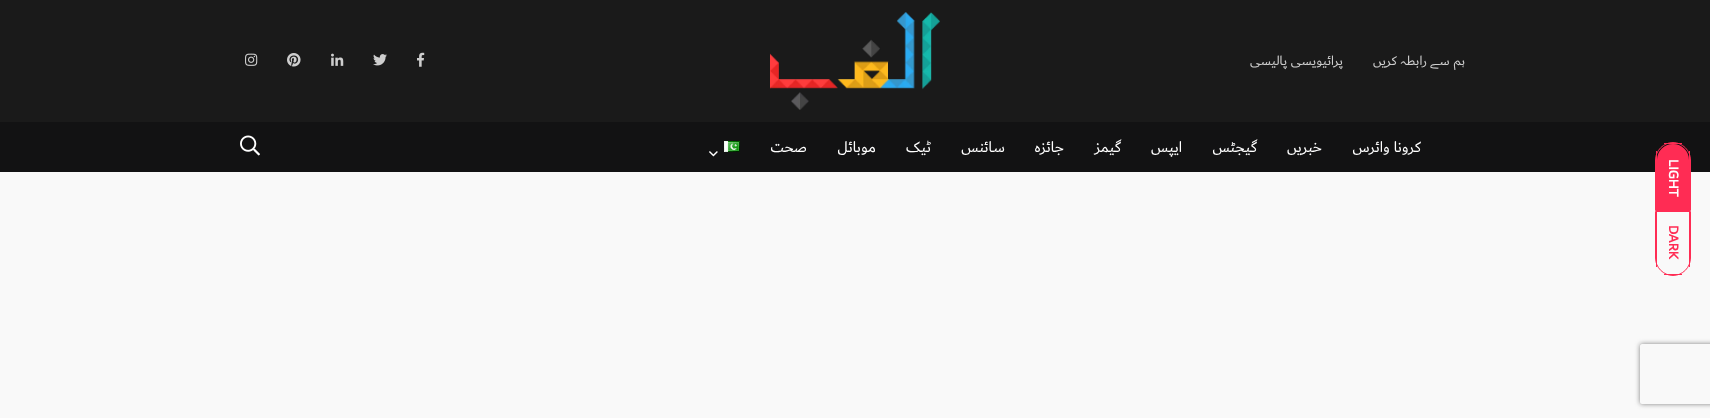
<svg xmlns="http://www.w3.org/2000/svg" width="1710" height="418">
<defs>
<clipPath id="clip1"><path d="M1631 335h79v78h-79zm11 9h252c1 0 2 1 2 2v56c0 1-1 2-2 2h-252c-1 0-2-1-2-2v-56c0-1 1-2 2-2z" clip-rule="evenodd"/></clipPath>
</defs>
<rect width="100%" height="100%" fill="#f9f9f9"/>
<rect width="1710" height="122" fill="#1a1a1a"/>
<text x="1465" y="65" style="font-family:'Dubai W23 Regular';font-size:14px;direction:rtl;fill:#cecece">ہم سے رابطہ کریں</text>
<text x="1343" y="65" style="font-family:'Dubai W23 Regular';font-size:14px;direction:rtl;fill:#cecece">پرائیویسی پالیسی</text>
<image x="770" y="12" width="170" height="98" href="media/1.png"/>
<image x="417" y="52" width="8" height="15" href="media/2.png"/>
<image x="373" y="54" width="14" height="12" href="media/3.png"/>
<image x="331" y="53" width="13" height="13" href="media/4.png"/>
<image x="287" y="53" width="14" height="14" href="media/5.png"/>
<image x="245" y="53" width="13" height="13" href="media/6.png"/>
<rect y="122" width="1710" height="50" fill="#121213"/>
<text x="1421" y="152" style="font-family:'Dubai W23 Regular';font-size:16px;direction:rtl;fill:#fff">کرونا وائرس</text>
<text x="1322" y="152" style="font-family:'Dubai W23 Regular';font-size:16px;direction:rtl;fill:#fff">خبریں</text>
<text x="1257" y="152" style="font-family:'Dubai W23 Regular';font-size:16px;direction:rtl;fill:#fff">گیجٹس</text>
<text x="1182" y="152" style="font-family:'Dubai W23 Regular';font-size:16px;direction:rtl;fill:#fff">ایپس</text>
<text x="1121" y="152" style="font-family:'Dubai W23 Regular';font-size:16px;direction:rtl;fill:#fff">گیمز</text>
<text x="1064" y="152" style="font-family:'Dubai W23 Regular';font-size:16px;direction:rtl;fill:#fff">جائزہ</text>
<text x="1005" y="152" style="font-family:'Dubai W23 Regular';font-size:16px;direction:rtl;fill:#fff">سائنس</text>
<text x="931" y="152" style="font-family:'Dubai W23 Regular';font-size:16px;direction:rtl;fill:#fff">ٹیک</text>
<text x="876" y="152" style="font-family:'Dubai W23 Regular';font-size:16px;direction:rtl;fill:#fff">موبائل</text>
<text x="807" y="152" style="font-family:'Dubai W23 Regular';font-size:16px;direction:rtl;fill:#fff">صحت</text>
<image x="724" y="141" width="16" height="11" href="media/7.png"/>
<image x="709" y="151" width="9" height="6" href="media/8.png"/>
<image x="240" y="135" width="20" height="21" href="media/9.png"/>
<path d="M1689 160v50h-32v-50c0-9 7-16 16-16c9 0 16 7 16 16z" fill="#ff2c54"/>
<path d="M1690.5 160v50.5h-35v-50.5c0-9.5 8-17.5 17.5-17.5c9.5 0 17.5 8 17.5 17.5z" fill="none" stroke="#ff2c54"/>
<rect x="1689" y="151" width="1" height="60" fill="#ff2c54"/>
<rect x="1656" y="151" width="1" height="60" fill="#ff2c54"/>
<rect x="1664" y="143" width="18" height="1" fill="#ff2c54"/>
<text x="1669" y="159" transform="rotate(90 1669 159)" style="font-family:'Dubai W23 Regular';font-size:14px;font-weight:bold;fill:#fff">LIGHT</text>
<path d="M1690.5 211.5v46.5c0 9.5-8 17.5-17.5 17.5c-9.5 0-17.5-8-17.5-17.5v-46.5z" fill="none" stroke="#ff2c54"/>
<rect x="1689" y="211" width="1" height="56" fill="#ff2c54"/>
<rect x="1664" y="274" width="18" height="1" fill="#ff2c54"/>
<rect x="1656" y="211" width="1" height="56" fill="#ff2c54"/>
<text x="1669" y="225" transform="rotate(90 1669 225)" style="font-family:'Dubai W23 Regular';font-size:14px;font-weight:bold;fill:#ff2c54">DARK</text>
<g clip-path="url(#clip1)">
<rect x="1640" y="344" width="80" height="60" rx="2" fill="#808080" filter="blur(2.5px)"/>
</g>
</svg>
